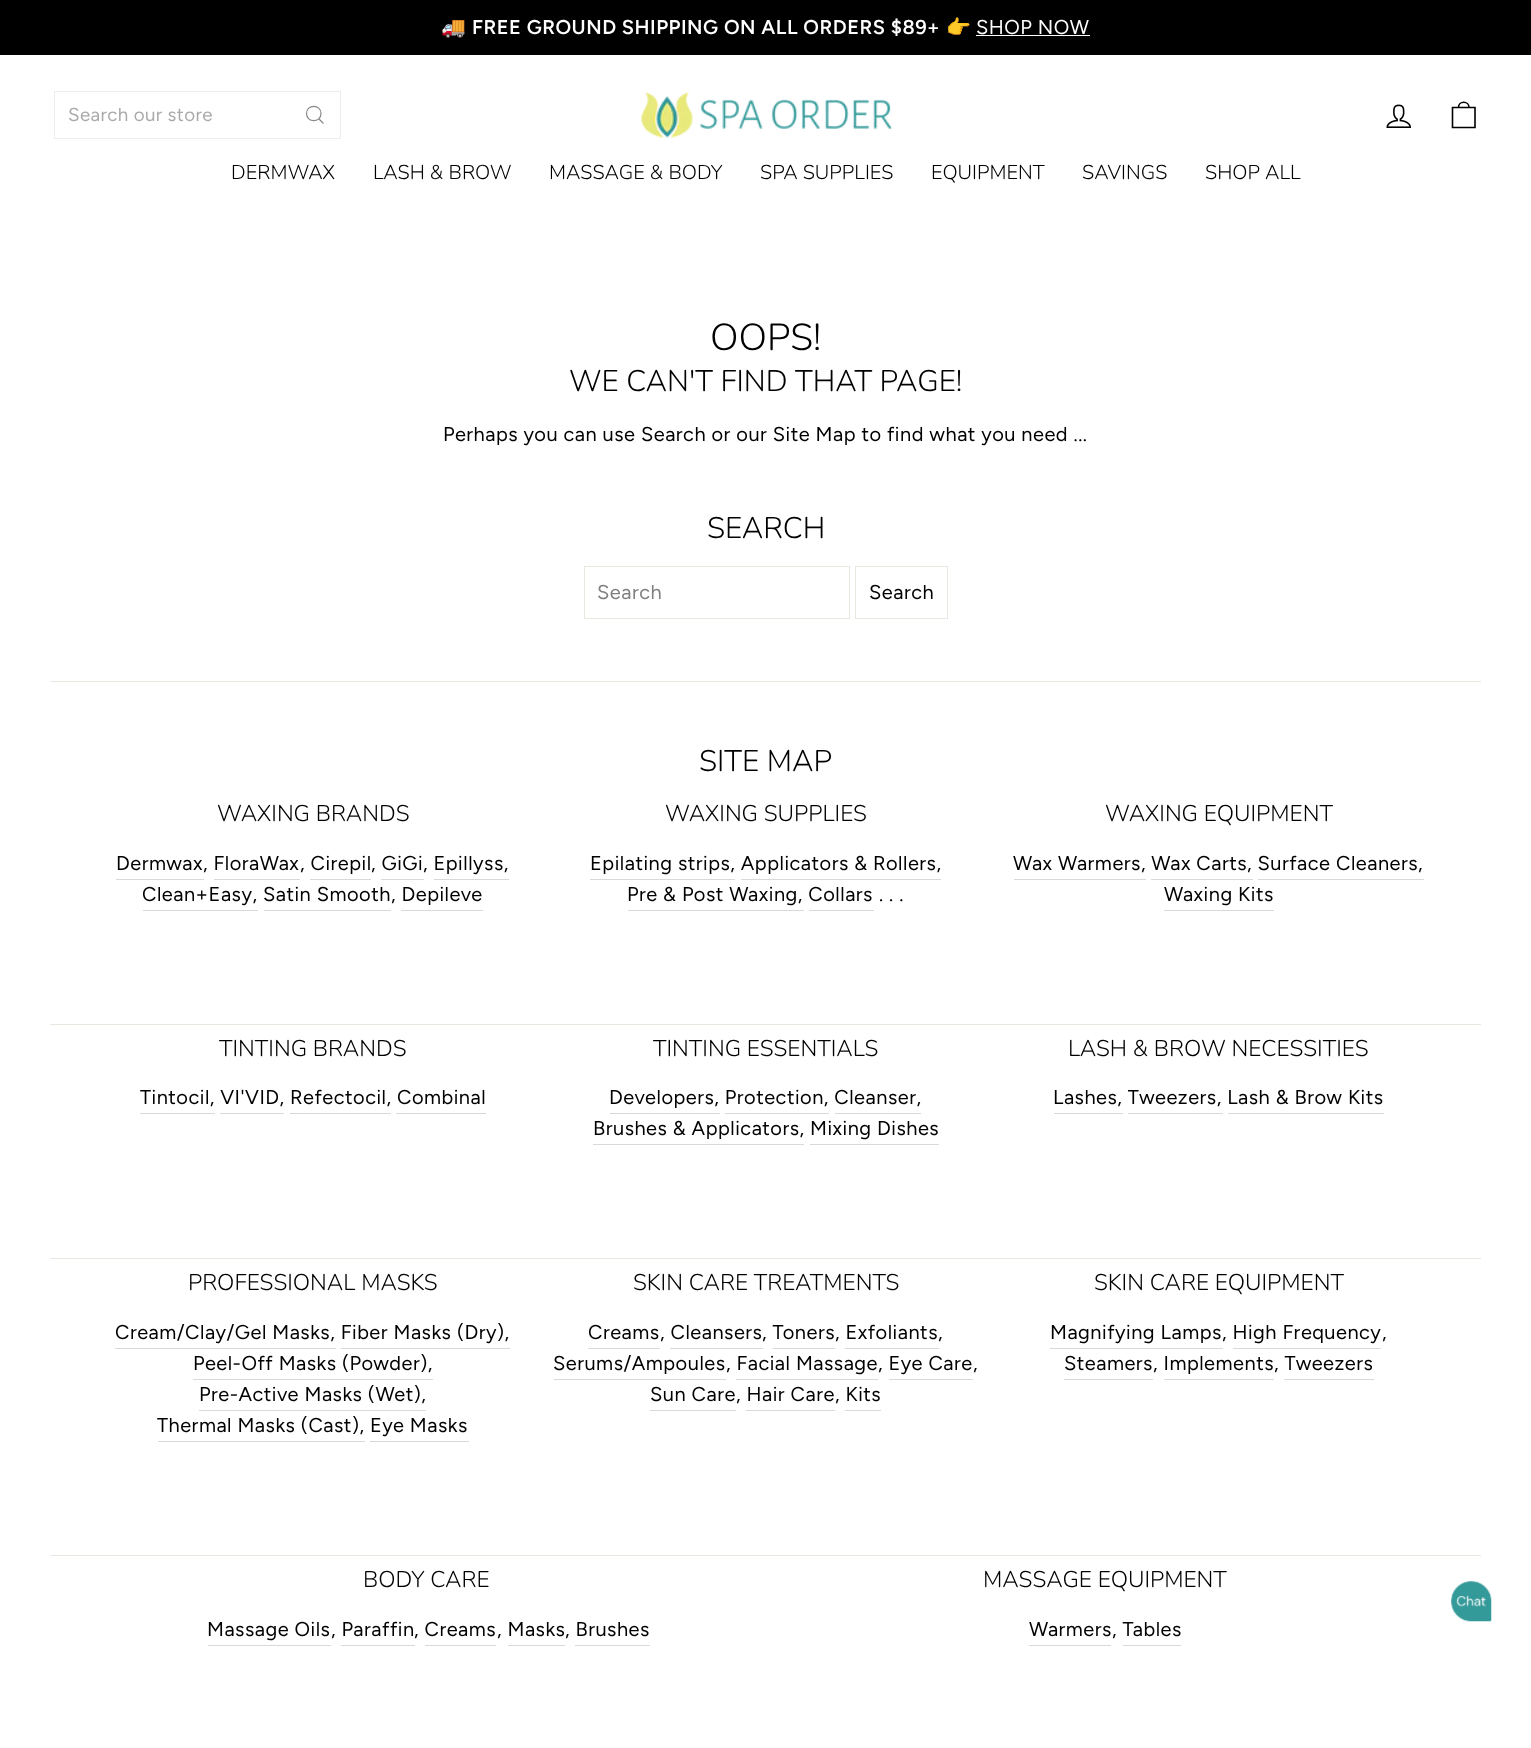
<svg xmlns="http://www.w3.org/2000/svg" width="1531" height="1748">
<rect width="100%" height="100%" fill="#fff"/>
<rect width="1531" height="55" fill="#000"/>
<text x="441" y="34" style="font-family:Noto Color Emoji;font-size:20px;font-weight:bold;letter-spacing:0.5px;fill:#fefefe">🚚</text>
<text x="472" y="34" style="font-family:Figtree;font-size:20px;font-weight:600;letter-spacing:0.5px;fill:#fefefe">FREE GROUND SHIPPING ON ALL ORDERS $89+</text>
<text x="946" y="34" style="font-family:Noto Color Emoji;font-size:20px;letter-spacing:0.5px;fill:#fefefe">👉</text>
<text x="976" y="34" style="font-family:Figtree;font-size:20px;letter-spacing:0.5px;fill:#fefefe">SHOP NOW</text>
<rect x="976" y="35" width="114" height="1" fill="#fff"/>
<rect x="54.5" y="91.5" width="286" height="47" fill="none" stroke="#ececec"/>
<text x="68" y="121" style="font-family:Figtree;font-size:18.75px;letter-spacing:0.4px;fill:#aaa">Search our store</text>
<path d="M321 113.5c0 9.5-14.5 9.5-14.5 0c0-9.5 14.5-9.5 14.5 0zm2.5 10l-4.5-4.5" fill="none" stroke="#888" stroke-width="1.2"/>
<image x="641" y="92" width="251" height="46" href="media/1.png"/>
<image x="1386" y="104" width="25" height="24" href="media/2.png"/>
<path d="M1452.5 107.5h22.5v20h-22.5zm6 0c0-7 10.5-7 10.5 0" fill="none" stroke="#000" stroke-width="1.6"/>
<text x="231" y="179" style="font-family:Nunito;font-size:20px;font-weight:300;fill:#000">DERMWAX</text>
<text x="373" y="179" style="font-family:Nunito;font-size:20px;font-weight:300;fill:#000">LASH &amp; BROW</text>
<text x="549" y="179" style="font-family:Nunito;font-size:20px;font-weight:300;fill:#000">MASSAGE &amp; BODY</text>
<text x="760" y="179" style="font-family:Nunito;font-size:20px;font-weight:300;fill:#000">SPA SUPPLIES</text>
<text x="931" y="179" style="font-family:Nunito;font-size:20px;font-weight:300;fill:#000">EQUIPMENT</text>
<text x="1082" y="179" style="font-family:Nunito;font-size:20px;font-weight:300;fill:#000">SAVINGS</text>
<text x="1205" y="179" style="font-family:Nunito;font-size:20px;font-weight:300;fill:#000">SHOP ALL</text>
<text x="710" y="350" style="font-family:Nunito;font-size:37.5px;font-weight:300;fill:#000">OOPS!</text>
<text x="569" y="391" style="font-family:Nunito;font-size:29.75px;font-weight:300;fill:#000">WE CAN'T FIND THAT PAGE!</text>
<text x="443" y="441" style="font-family:Figtree;font-size:20px;letter-spacing:0.5px;fill:#000">Perhaps you can use Search or our Site Map to find what you need ...</text>
<text x="707" y="538" style="font-family:Nunito;font-size:29.75px;font-weight:300;fill:#000">SEARCH</text>
<rect x="584.5" y="566.5" width="265" height="52" fill="none" stroke="#e8e8e1"/>
<text x="597" y="599" style="font-family:Figtree;font-size:20px;letter-spacing:0.5px;fill:#808080">Search</text>
<rect x="855.5" y="566.5" width="92" height="52" fill="none" stroke="#e8e8e1"/>
<text x="869" y="599" style="font-family:Figtree;font-size:20px;letter-spacing:0.5px;fill:#000">Search</text>
<rect x="50" y="681" width="1431" height="1" fill="#e8e8e1"/>
<text x="699" y="771" style="font-family:Nunito;font-size:29.75px;font-weight:300;fill:#000">SITE MAP</text>
<text x="217" y="821" style="font-family:Nunito;font-size:22.75px;font-weight:300;fill:#000">WAXING BRANDS</text>
<rect x="116" y="879" width="88" height="1" fill="#d9d9d9"/>
<text x="116" y="870" style="font-family:Figtree;font-size:20px;letter-spacing:0.5px;fill:#000">Dermwax</text>
<text x="203" y="870" style="font-family:Figtree;font-size:20px;letter-spacing:0.5px;fill:#000">, FloraWax</text>
<text x="300" y="870" style="font-family:Figtree;font-size:20px;letter-spacing:0.5px;fill:#000">, Cirepil</text>
<text x="371" y="870" style="font-family:Figtree;font-size:20px;letter-spacing:0.5px;fill:#000">, GiGi</text>
<text x="423" y="870" style="font-family:Figtree;font-size:20px;letter-spacing:0.5px;fill:#000">, Epillyss,</text>
<rect x="214" y="879" width="86" height="1" fill="#d9d9d9"/>
<rect x="310" y="879" width="61" height="1" fill="#d9d9d9"/>
<rect x="381" y="879" width="43" height="1" fill="#d9d9d9"/>
<rect x="434" y="879" width="75" height="1" fill="#d9d9d9"/>
<rect x="143" y="910" width="115" height="1" fill="#d9d9d9"/>
<text x="142" y="901" style="font-family:Figtree;font-size:20px;letter-spacing:0.5px;fill:#000">Clean+Easy, Satin Smooth</text>
<text x="391" y="901" style="font-family:Figtree;font-size:20px;letter-spacing:0.5px;fill:#000">, Depileve</text>
<rect x="264" y="910" width="127" height="1" fill="#d9d9d9"/>
<rect x="401" y="910" width="82" height="1" fill="#d9d9d9"/>
<text x="665" y="821" style="font-family:Nunito;font-size:22.75px;font-weight:300;fill:#000">WAXING SUPPLIES</text>
<rect x="590" y="879" width="145" height="1" fill="#d9d9d9"/>
<text x="590" y="870" style="font-family:Figtree;font-size:20px;letter-spacing:0.5px;fill:#000">Epilating strips, Applicators &amp; Rollers,</text>
<rect x="741" y="879" width="200" height="1" fill="#d9d9d9"/>
<rect x="628" y="910" width="176" height="1" fill="#d9d9d9"/>
<text x="627" y="901" style="font-family:Figtree;font-size:20px;letter-spacing:0.5px;fill:#000">Pre &amp; Post Waxing, Collars</text>
<text x="879" y="901" style="font-family:Figtree;font-size:20px;letter-spacing:0.5px;fill:#000">. . .</text>
<rect x="809" y="910" width="65" height="1" fill="#d9d9d9"/>
<text x="1105" y="821" style="font-family:Nunito;font-size:22.75px;font-weight:300;fill:#000">WAXING EQUIPMENT</text>
<rect x="1014" y="879" width="132" height="1" fill="#d9d9d9"/>
<text x="1013" y="870" style="font-family:Figtree;font-size:20px;letter-spacing:0.5px;fill:#000">Wax Warmers, Wax Carts, Surface Cleaners,</text>
<rect x="1151" y="879" width="102" height="1" fill="#d9d9d9"/>
<rect x="1258" y="879" width="166" height="1" fill="#d9d9d9"/>
<rect x="1164" y="910" width="110" height="1" fill="#d9d9d9"/>
<text x="1164" y="901" style="font-family:Figtree;font-size:20px;letter-spacing:0.5px;fill:#000">Waxing Kits</text>
<rect x="50" y="1024" width="1431" height="1" fill="#e8e8e1"/>
<text x="219" y="1056" style="font-family:Nunito;font-size:22.75px;font-weight:300;fill:#000">TINTING BRANDS</text>
<rect x="140" y="1113" width="75" height="1" fill="#d9d9d9"/>
<text x="140" y="1104" style="font-family:Figtree;font-size:20px;letter-spacing:0.5px;fill:#000">Tintocil, VI'VID, Refectocil, Combinal</text>
<rect x="220" y="1113" width="64" height="1" fill="#d9d9d9"/>
<rect x="290" y="1113" width="101" height="1" fill="#d9d9d9"/>
<rect x="396" y="1113" width="90" height="1" fill="#d9d9d9"/>
<text x="653" y="1056" style="font-family:Nunito;font-size:22.75px;font-weight:300;fill:#000">TINTING ESSENTIALS</text>
<rect x="610" y="1113" width="110" height="1" fill="#d9d9d9"/>
<text x="609" y="1104" style="font-family:Figtree;font-size:20px;letter-spacing:0.5px;fill:#000">Developers, Protection, Cleanser,</text>
<rect x="725" y="1113" width="104" height="1" fill="#d9d9d9"/>
<rect x="835" y="1113" width="86" height="1" fill="#d9d9d9"/>
<rect x="593" y="1144" width="211" height="1" fill="#d9d9d9"/>
<text x="593" y="1135" style="font-family:Figtree;font-size:20px;letter-spacing:0.5px;fill:#000">Brushes &amp; Applicators, Mixing Dishes</text>
<rect x="810" y="1144" width="129" height="1" fill="#d9d9d9"/>
<text x="1068" y="1056" style="font-family:Nunito;font-size:22.75px;font-weight:300;fill:#000">LASH &amp; BROW NECESSITIES</text>
<rect x="1054" y="1113" width="69" height="1" fill="#d9d9d9"/>
<text x="1053" y="1104" style="font-family:Figtree;font-size:20px;letter-spacing:0.5px;fill:#000">Lashes, Tweezers, Lash &amp; Brow Kits</text>
<rect x="1128" y="1113" width="95" height="1" fill="#d9d9d9"/>
<rect x="1228" y="1113" width="156" height="1" fill="#d9d9d9"/>
<rect x="50" y="1258" width="1431" height="1" fill="#e8e8e1"/>
<text x="188" y="1290" style="font-family:Nunito;font-size:22.75px;font-weight:300;fill:#000">PROFESSIONAL MASKS</text>
<rect x="115" y="1348" width="221" height="1" fill="#d9d9d9"/>
<text x="115" y="1339" style="font-family:Figtree;font-size:20px;letter-spacing:0.5px;fill:#000">Cream/Clay/Gel Masks, Fiber Masks (Dry),</text>
<rect x="341" y="1348" width="169" height="1" fill="#d9d9d9"/>
<rect x="193" y="1379" width="240" height="1" fill="#d9d9d9"/>
<text x="193" y="1370" style="font-family:Figtree;font-size:20px;letter-spacing:0.5px;fill:#000">Peel-Off Masks (Powder),</text>
<rect x="199" y="1410" width="227" height="1" fill="#d9d9d9"/>
<text x="199" y="1401" style="font-family:Figtree;font-size:20px;letter-spacing:0.5px;fill:#000">Pre-Active Masks (Wet),</text>
<rect x="158" y="1441" width="207" height="1" fill="#d9d9d9"/>
<text x="157" y="1432" style="font-family:Figtree;font-size:20px;letter-spacing:0.5px;fill:#000">Thermal Masks (Cast), Eye Masks</text>
<rect x="370" y="1441" width="99" height="1" fill="#d9d9d9"/>
<text x="633" y="1290" style="font-family:Nunito;font-size:22.75px;font-weight:300;fill:#000">SKIN CARE TREATMENTS</text>
<rect x="588" y="1348" width="72" height="1" fill="#d9d9d9"/>
<text x="588" y="1339" style="font-family:Figtree;font-size:20px;letter-spacing:0.5px;fill:#000">Creams</text>
<text x="660" y="1339" style="font-family:Figtree;font-size:20px;letter-spacing:0.5px;fill:#000">, Cleansers</text>
<text x="762" y="1339" style="font-family:Figtree;font-size:20px;letter-spacing:0.5px;fill:#000">, Toners</text>
<text x="835" y="1339" style="font-family:Figtree;font-size:20px;letter-spacing:0.5px;fill:#000">, Exfoliants</text>
<text x="938" y="1339" style="font-family:Figtree;font-size:20px;letter-spacing:0.5px;fill:#000">,</text>
<rect x="670" y="1348" width="93" height="1" fill="#d9d9d9"/>
<rect x="773" y="1348" width="62" height="1" fill="#d9d9d9"/>
<rect x="845" y="1348" width="94" height="1" fill="#d9d9d9"/>
<rect x="554" y="1379" width="172" height="1" fill="#d9d9d9"/>
<text x="553" y="1370" style="font-family:Figtree;font-size:20px;letter-spacing:0.5px;fill:#000">Serums/Ampoules</text>
<text x="726" y="1370" style="font-family:Figtree;font-size:20px;letter-spacing:0.5px;fill:#000">, Facial Massage</text>
<text x="878" y="1370" style="font-family:Figtree;font-size:20px;letter-spacing:0.5px;fill:#000">, Eye Care</text>
<text x="973" y="1370" style="font-family:Figtree;font-size:20px;letter-spacing:0.5px;fill:#000">,</text>
<rect x="736" y="1379" width="142" height="1" fill="#d9d9d9"/>
<rect x="889" y="1379" width="84" height="1" fill="#d9d9d9"/>
<rect x="650" y="1410" width="86" height="1" fill="#d9d9d9"/>
<text x="650" y="1401" style="font-family:Figtree;font-size:20px;letter-spacing:0.5px;fill:#000">Sun Care</text>
<text x="736" y="1401" style="font-family:Figtree;font-size:20px;letter-spacing:0.5px;fill:#000">, Hair Care</text>
<text x="835" y="1401" style="font-family:Figtree;font-size:20px;letter-spacing:0.5px;fill:#000">, Kits</text>
<rect x="746" y="1410" width="89" height="1" fill="#d9d9d9"/>
<rect x="845" y="1410" width="36" height="1" fill="#d9d9d9"/>
<text x="1094" y="1290" style="font-family:Nunito;font-size:22.75px;font-weight:300;fill:#000">SKIN CARE EQUIPMENT</text>
<rect x="1050" y="1348" width="173" height="1" fill="#d9d9d9"/>
<text x="1050" y="1339" style="font-family:Figtree;font-size:20px;letter-spacing:0.5px;fill:#000">Magnifying Lamps</text>
<text x="1222" y="1339" style="font-family:Figtree;font-size:20px;letter-spacing:0.5px;fill:#000">, High Frequency</text>
<text x="1382" y="1339" style="font-family:Figtree;font-size:20px;letter-spacing:0.5px;fill:#000">,</text>
<rect x="1233" y="1348" width="148" height="1" fill="#d9d9d9"/>
<rect x="1064" y="1379" width="89" height="1" fill="#d9d9d9"/>
<text x="1064" y="1370" style="font-family:Figtree;font-size:20px;letter-spacing:0.5px;fill:#000">Steamers</text>
<text x="1153" y="1370" style="font-family:Figtree;font-size:20px;letter-spacing:0.5px;fill:#000">, Implements</text>
<text x="1274" y="1370" style="font-family:Figtree;font-size:20px;letter-spacing:0.5px;fill:#000">, Tweezers</text>
<rect x="1164" y="1379" width="110" height="1" fill="#d9d9d9"/>
<rect x="1284" y="1379" width="90" height="1" fill="#d9d9d9"/>
<rect x="50" y="1555" width="1431" height="1" fill="#e8e8e1"/>
<text x="363" y="1587" style="font-family:Nunito;font-size:22.75px;font-weight:300;fill:#000">BODY CARE</text>
<rect x="208" y="1645" width="123" height="1" fill="#d9d9d9"/>
<text x="207" y="1636" style="font-family:Figtree;font-size:20px;letter-spacing:0.5px;fill:#000">Massage Oils</text>
<text x="331" y="1636" style="font-family:Figtree;font-size:20px;letter-spacing:0.5px;fill:#000">, Paraffin</text>
<text x="414" y="1636" style="font-family:Figtree;font-size:20px;letter-spacing:0.5px;fill:#000">, Creams</text>
<text x="497" y="1636" style="font-family:Figtree;font-size:20px;letter-spacing:0.5px;fill:#000">, Masks</text>
<text x="565" y="1636" style="font-family:Figtree;font-size:20px;letter-spacing:0.5px;fill:#000">, Brushes</text>
<rect x="341" y="1645" width="74" height="1" fill="#d9d9d9"/>
<rect x="425" y="1645" width="71" height="1" fill="#d9d9d9"/>
<rect x="508" y="1645" width="57" height="1" fill="#d9d9d9"/>
<rect x="575" y="1645" width="75" height="1" fill="#d9d9d9"/>
<text x="983" y="1587" style="font-family:Nunito;font-size:22.75px;font-weight:300;fill:#000">MASSAGE EQUIPMENT</text>
<rect x="1029" y="1645" width="82" height="1" fill="#d9d9d9"/>
<text x="1029" y="1636" style="font-family:Figtree;font-size:20px;letter-spacing:0.5px;fill:#000">Warmers</text>
<text x="1112" y="1636" style="font-family:Figtree;font-size:20px;letter-spacing:0.5px;fill:#000">, Tables</text>
<rect x="1123" y="1645" width="58" height="1" fill="#d9d9d9"/>
<image x="1451" y="1581" width="41" height="41" href="media/3.png"/>
</svg>
